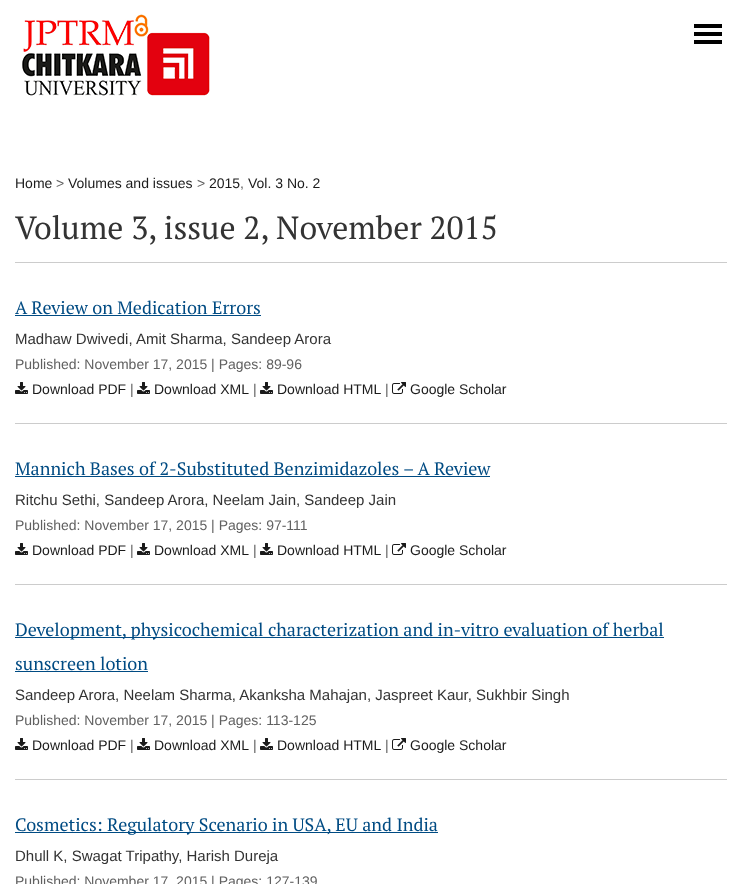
<svg xmlns="http://www.w3.org/2000/svg" width="742" height="884">
<rect width="100%" height="100%" fill="#fff"/>
<image x="22" y="14" width="188" height="82" href="media/1.png"/>
<rect x="694" y="24" width="28" height="20" fill="#000"/>
<rect x="694" y="28" width="28" height="4" fill="#fff"/>
<rect x="694" y="36" width="28" height="4" fill="#fff"/>
<text x="15" y="188" style="font-family:Liberation Sans;font-size:14px;fill:#1a1a1a">Home</text>
<text x="56" y="188" style="font-family:Liberation Sans;font-size:14px;fill:#606060">&gt;</text>
<text x="68" y="188" style="font-family:Liberation Sans;font-size:14px;fill:#1a1a1a">Volumes and issues</text>
<text x="197" y="188" style="font-family:Liberation Sans;font-size:14px;fill:#606060">&gt;</text>
<text x="209" y="188" style="font-family:Liberation Sans;font-size:14px;fill:#1a1a1a">2015</text>
<text x="248" y="188" style="font-family:Liberation Sans;font-size:14px;fill:#1a1a1a">Vol. 3 No. 2</text>
<text x="240" y="188" style="font-family:Liberation Sans;font-size:14px;fill:#606060">,</text>
<text x="15" y="239" style="font-family:PT Serif;font-size:32px;fill:#333">Volume 3, issue 2, November 2015</text>
<rect x="15" y="262" width="712" height="1" fill="#ccc"/>
<text x="15" y="314" style="font-family:PT Serif;font-size:18px;fill:#004b83">A Review on Medication Errors</text>
<rect x="15" y="315" width="246" height="1" fill="#004b83"/>
<text x="15" y="344" style="font-family:Liberation Sans;font-size:15px;fill:#333">Madhaw Dwivedi, Amit Sharma, Sandeep Arora</text>
<text x="15" y="369" style="font-family:Liberation Sans;font-size:14px;fill:#606060">Published: November 17, 2015 | Pages: 89-96</text>
<image x="15" y="382" width="13" height="12" href="media/2.png"/>
<text x="32" y="394" style="font-family:Liberation Sans;font-size:14px;fill:#1a1a1a">Download PDF</text>
<text x="130" y="394" style="font-family:Liberation Sans;font-size:14px;fill:#606060">|</text>
<image x="137" y="382" width="13" height="12" href="media/2.png"/>
<text x="154" y="394" style="font-family:Liberation Sans;font-size:14px;fill:#1a1a1a">Download XML</text>
<text x="253" y="394" style="font-family:Liberation Sans;font-size:14px;fill:#606060">|</text>
<image x="260" y="382" width="13" height="12" href="media/2.png"/>
<text x="277" y="394" style="font-family:Liberation Sans;font-size:14px;fill:#1a1a1a">Download HTML</text>
<text x="385" y="394" style="font-family:Liberation Sans;font-size:14px;fill:#606060">|</text>
<image x="392" y="382" width="14" height="12" href="media/3.png"/>
<text x="410" y="394" style="font-family:Liberation Sans;font-size:14px;fill:#1a1a1a">Google Scholar</text>
<rect x="15" y="423" width="712" height="1" fill="#ccc"/>
<text x="15" y="475" style="font-family:PT Serif;font-size:18px;fill:#004b83">Mannich Bases of 2-Substituted Benzimidazoles – A Review</text>
<rect x="15" y="476" width="475" height="1" fill="#004b83"/>
<text x="15" y="505" style="font-family:Liberation Sans;font-size:15px;fill:#333">Ritchu Sethi, Sandeep Arora, Neelam Jain, Sandeep Jain</text>
<text x="15" y="530" style="font-family:Liberation Sans;font-size:14px;fill:#606060">Published: November 17, 2015 | Pages: 97-111</text>
<image x="15" y="543" width="13" height="12" href="media/2.png"/>
<text x="32" y="555" style="font-family:Liberation Sans;font-size:14px;fill:#1a1a1a">Download PDF</text>
<text x="130" y="555" style="font-family:Liberation Sans;font-size:14px;fill:#606060">|</text>
<image x="137" y="543" width="13" height="12" href="media/2.png"/>
<text x="154" y="555" style="font-family:Liberation Sans;font-size:14px;fill:#1a1a1a">Download XML</text>
<text x="253" y="555" style="font-family:Liberation Sans;font-size:14px;fill:#606060">|</text>
<image x="260" y="543" width="13" height="12" href="media/2.png"/>
<text x="277" y="555" style="font-family:Liberation Sans;font-size:14px;fill:#1a1a1a">Download HTML</text>
<text x="385" y="555" style="font-family:Liberation Sans;font-size:14px;fill:#606060">|</text>
<image x="392" y="543" width="14" height="12" href="media/3.png"/>
<text x="410" y="555" style="font-family:Liberation Sans;font-size:14px;fill:#1a1a1a">Google Scholar</text>
<rect x="15" y="584" width="712" height="1" fill="#ccc"/>
<rect x="15" y="637" width="649" height="1" fill="#004b83"/>
<text x="15" y="636" style="font-family:PT Serif;font-size:18px;fill:#004b83">Development, physicochemical characterization and in-vitro evaluation of herbal</text>
<text x="15" y="670" style="font-family:PT Serif;font-size:18px;fill:#004b83">sunscreen lotion</text>
<rect x="15" y="671" width="133" height="1" fill="#004b83"/>
<text x="15" y="700" style="font-family:Liberation Sans;font-size:15px;fill:#333">Sandeep Arora, Neelam Sharma, Akanksha Mahajan, Jaspreet Kaur, Sukhbir Singh</text>
<text x="15" y="725" style="font-family:Liberation Sans;font-size:14px;fill:#606060">Published: November 17, 2015 | Pages: 113-125</text>
<image x="15" y="738" width="13" height="12" href="media/2.png"/>
<text x="32" y="750" style="font-family:Liberation Sans;font-size:14px;fill:#1a1a1a">Download PDF</text>
<text x="130" y="750" style="font-family:Liberation Sans;font-size:14px;fill:#606060">|</text>
<image x="137" y="738" width="13" height="12" href="media/2.png"/>
<text x="154" y="750" style="font-family:Liberation Sans;font-size:14px;fill:#1a1a1a">Download XML</text>
<text x="253" y="750" style="font-family:Liberation Sans;font-size:14px;fill:#606060">|</text>
<image x="260" y="738" width="13" height="12" href="media/2.png"/>
<text x="277" y="750" style="font-family:Liberation Sans;font-size:14px;fill:#1a1a1a">Download HTML</text>
<text x="385" y="750" style="font-family:Liberation Sans;font-size:14px;fill:#606060">|</text>
<image x="392" y="738" width="14" height="12" href="media/3.png"/>
<text x="410" y="750" style="font-family:Liberation Sans;font-size:14px;fill:#1a1a1a">Google Scholar</text>
<rect x="15" y="779" width="712" height="1" fill="#ccc"/>
<rect x="15" y="832" width="423" height="1" fill="#004b83"/>
<text x="15" y="831" style="font-family:PT Serif;font-size:18px;fill:#004b83">Cosmetics: Regulatory Scenario in USA, EU and India</text>
<text x="15" y="861" style="font-family:Liberation Sans;font-size:15px;fill:#333">Dhull K, Swagat Tripathy, Harish Dureja</text>
<text x="15" y="886" style="font-family:Liberation Sans;font-size:14px;fill:#606060">Published: November 17, 2015 | Pages: 127-139</text>
</svg>
